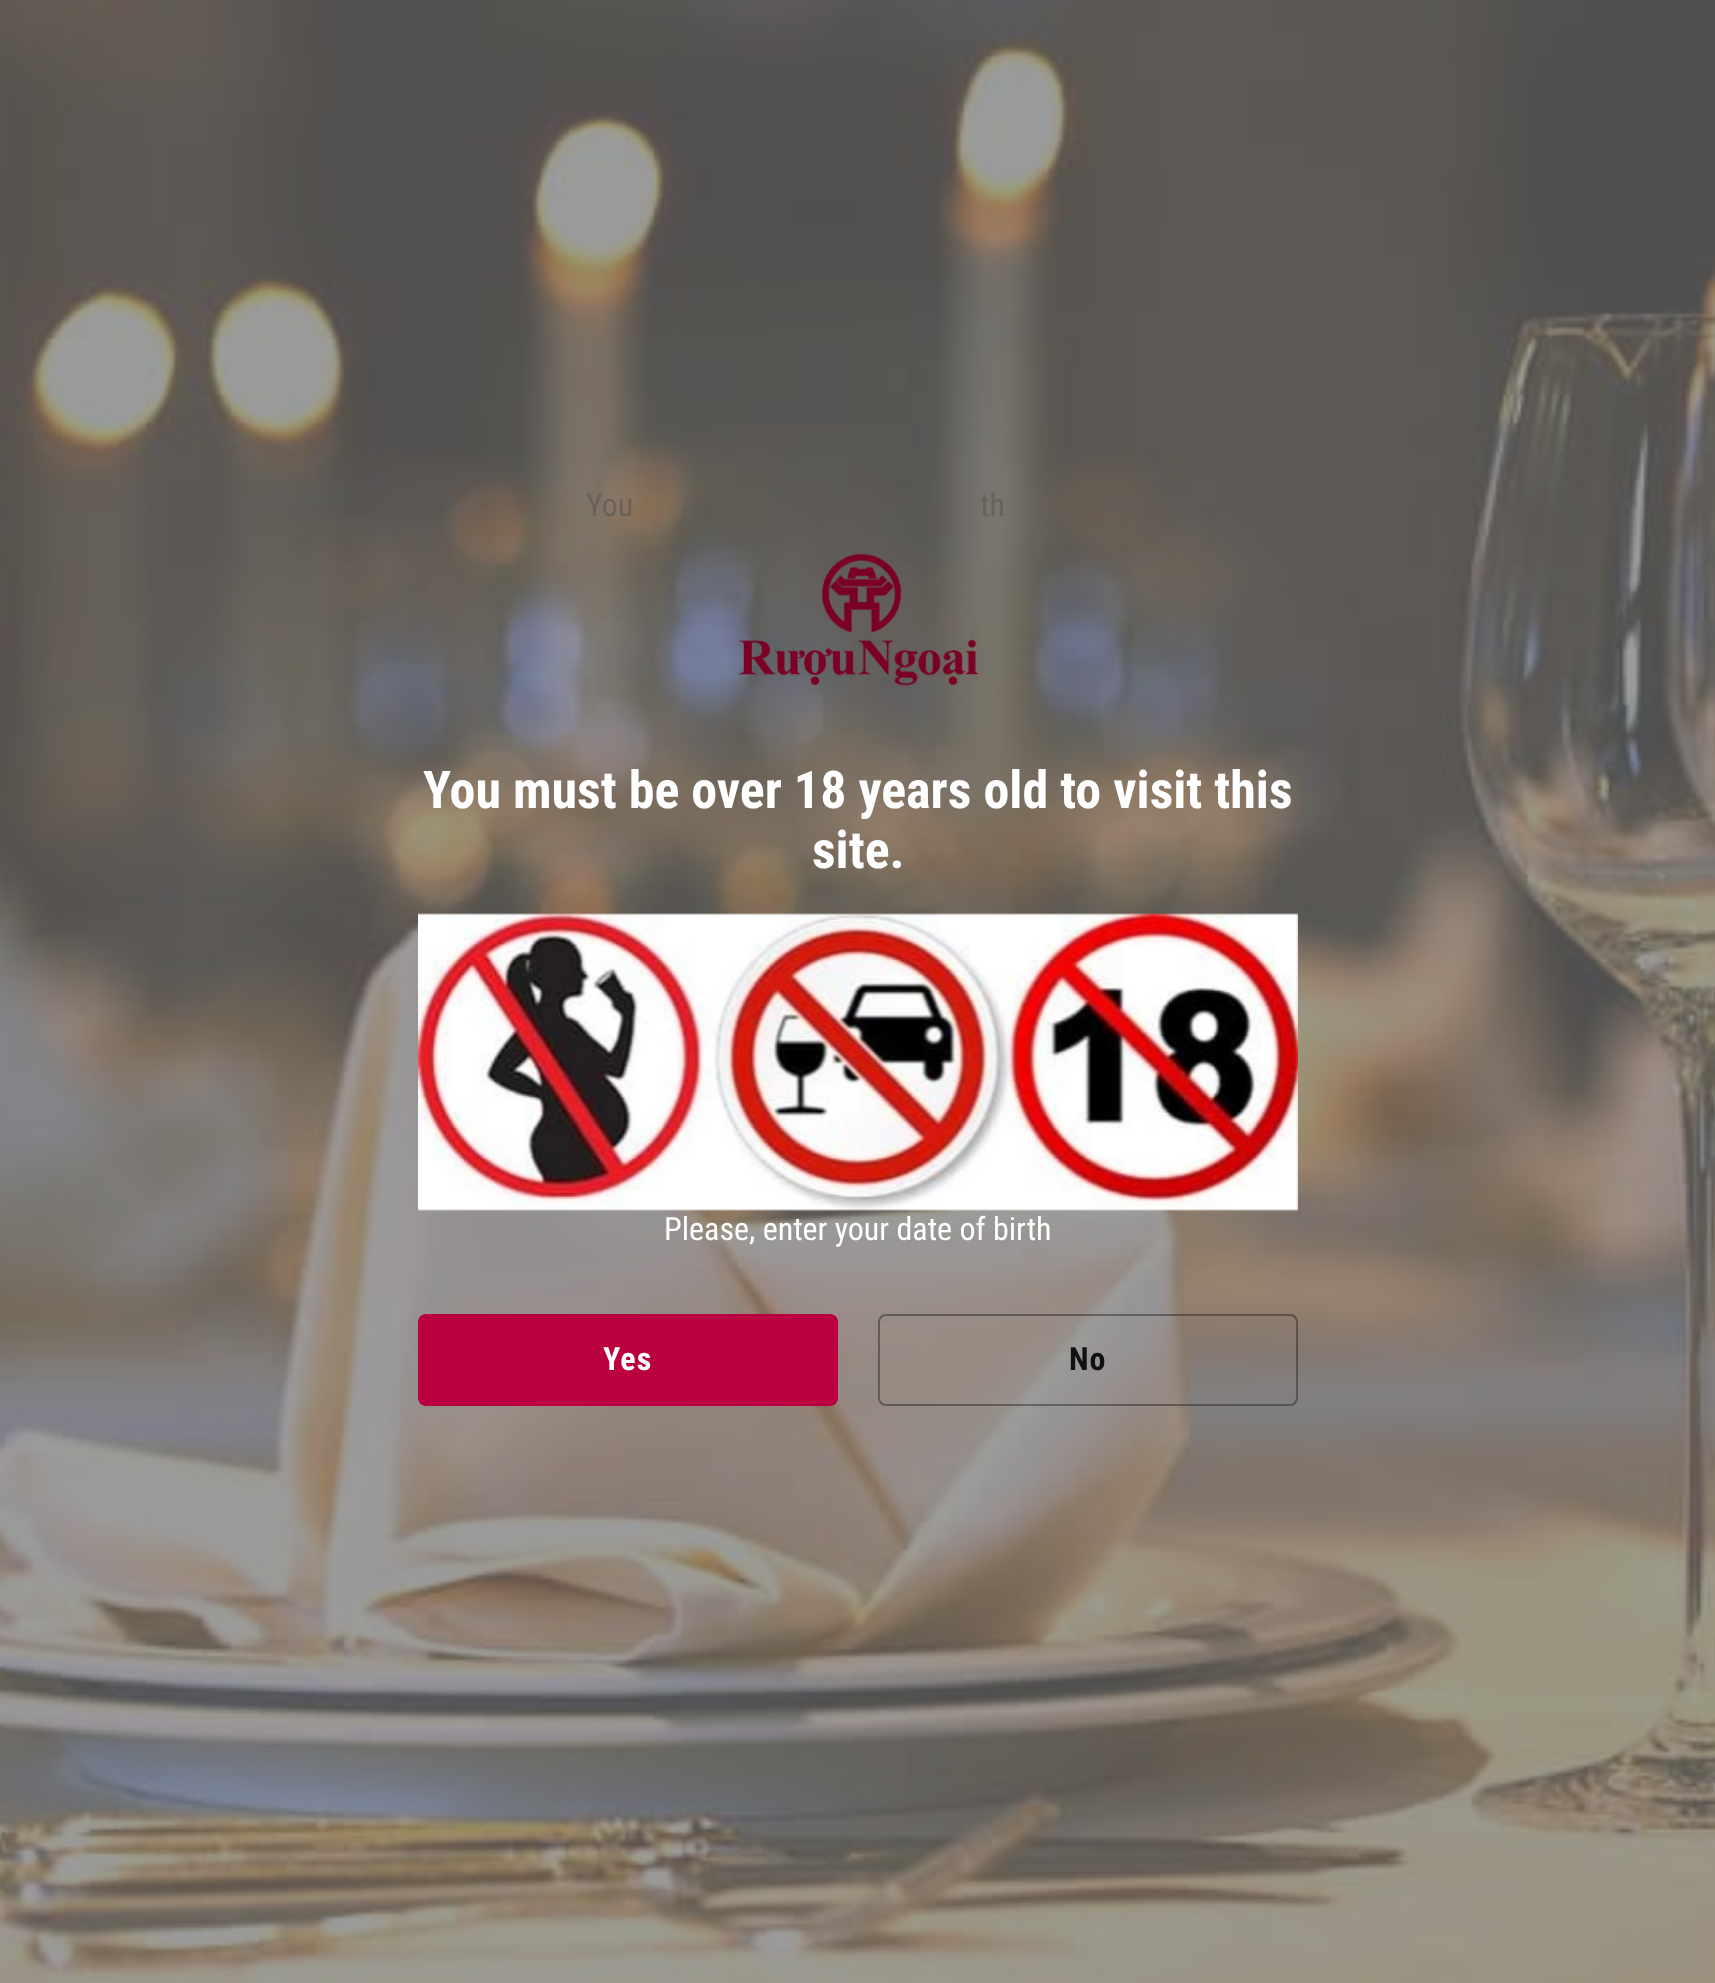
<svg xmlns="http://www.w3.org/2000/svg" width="1715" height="1983">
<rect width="100%" height="100%" fill="#fff"/>
<image x="0" y="0" width="1715" height="1983" href="media/1.png"/>
<text x="586" y="516" style="font-family:Roboto Condensed;font-size:32px;fill:#696259">You</text>
<text x="980" y="516" style="font-family:Roboto Condensed;font-size:32px;fill:#696259">th</text>
<image x="738" y="553" width="240" height="133" href="media/2.png"/>
<text x="423" y="808" style="font-family:Roboto Condensed;font-size:52px;font-weight:bold;fill:#fff">You must be over 18 years old to visit this</text>
<text x="812" y="868" style="font-family:Roboto Condensed;font-size:52px;font-weight:bold;fill:#fff">site.</text>
<image x="418" y="913" width="880" height="299" href="media/3.png"/>
<text x="664" y="1240" style="font-family:Roboto Condensed;font-size:32px;fill:#fff">Please, enter your date of birth</text>
<rect x="418" y="1314" width="420" height="92" rx="8" fill="#ba0040"/>
<text x="603" y="1370" style="font-family:Roboto Condensed;font-size:32px;font-weight:bold;letter-spacing:1px;fill:#fff">Yes</text>
<rect x="879" y="1315" width="418" height="90" rx="7" fill="none" stroke="#11111166" stroke-width="2"/>
<text x="1069" y="1370" style="font-family:Roboto Condensed;font-size:32px;font-weight:bold;letter-spacing:1px;fill:#111">No</text>
</svg>
